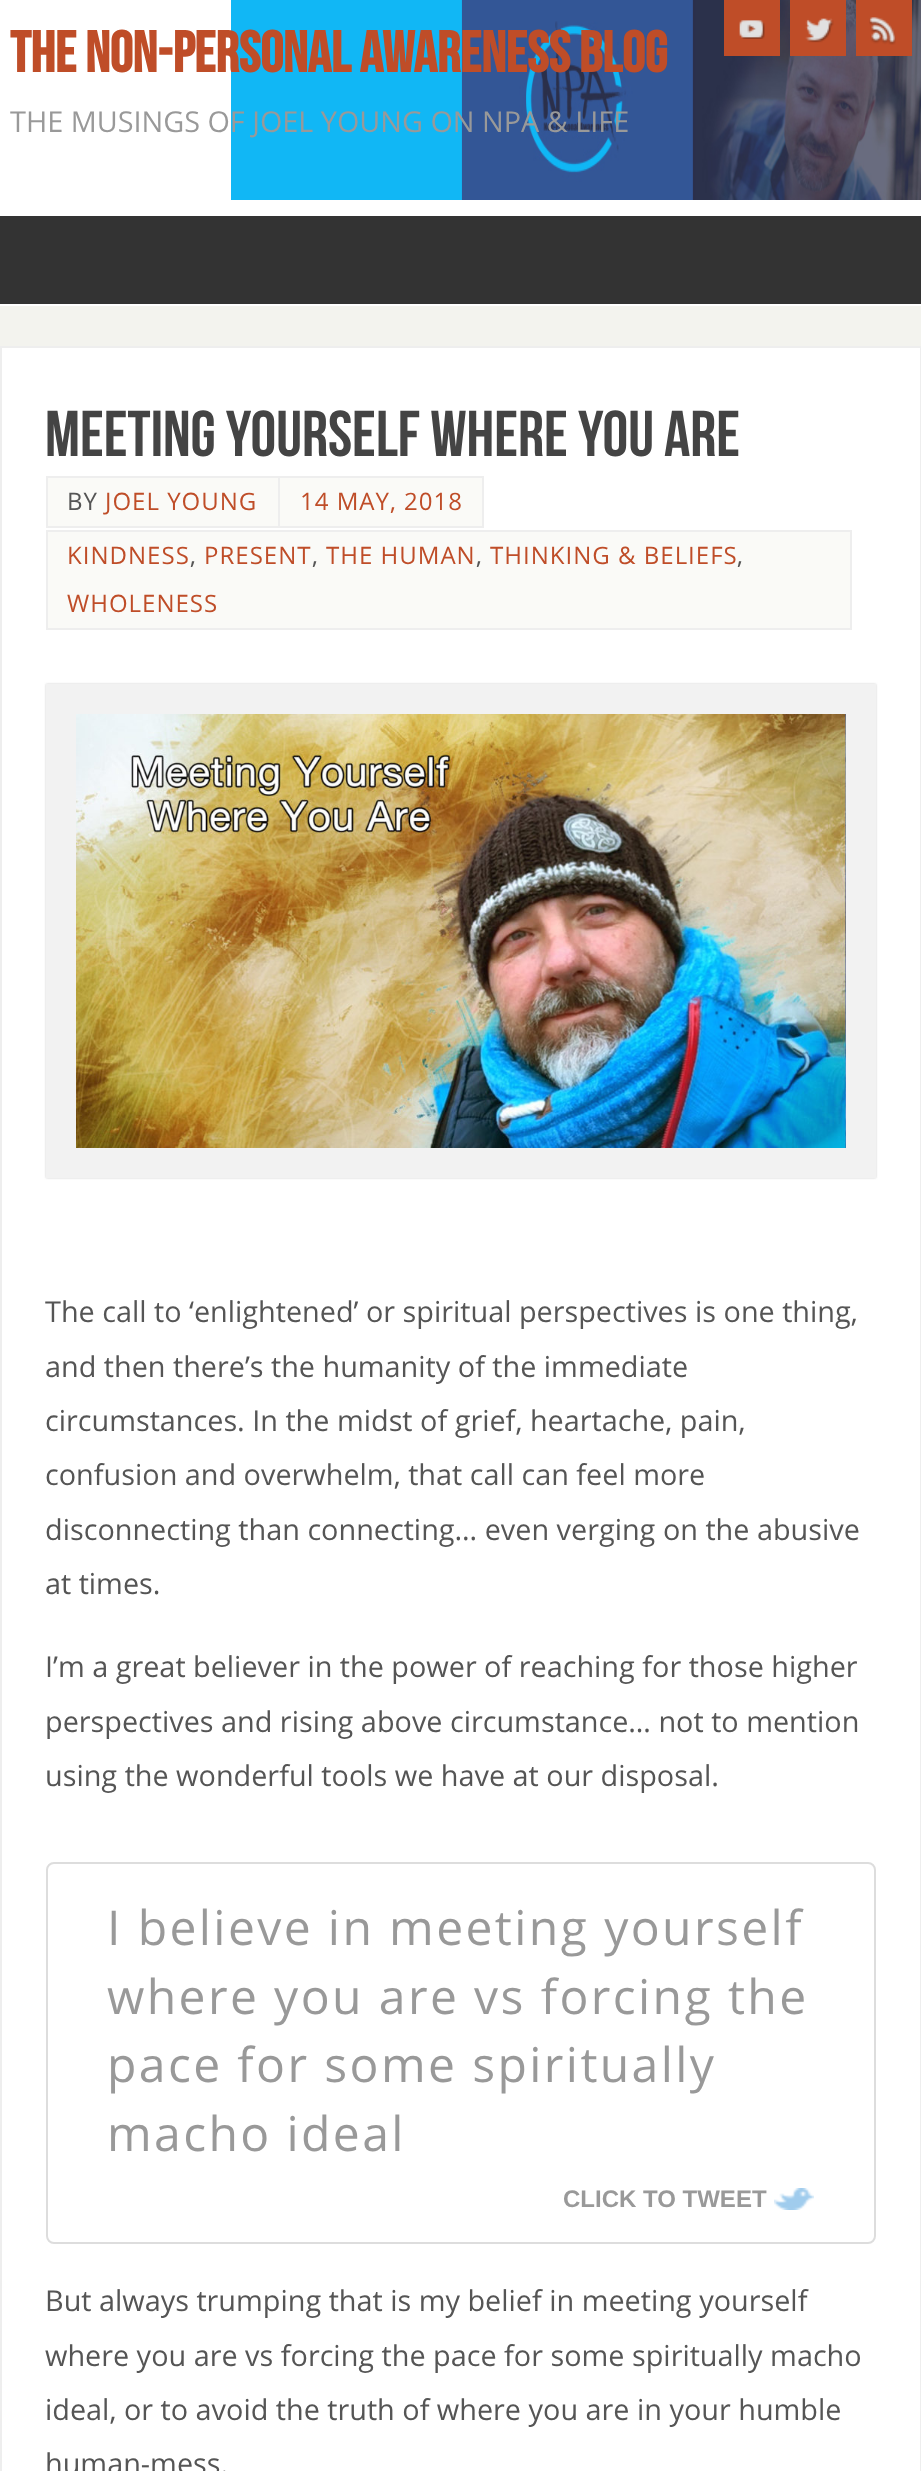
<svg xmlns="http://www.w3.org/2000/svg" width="921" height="2471">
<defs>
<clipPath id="clip1"><path d="M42 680h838v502h-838zm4 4h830v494h-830z" clip-rule="evenodd"/></clipPath>
</defs>
<rect width="100%" height="100%" fill="#f3f3ee"/>
<rect width="921" height="306" fill="#fff"/>
<image x="231" y="0" width="690" height="200" href="media/1.png"/>
<text x="10" y="72" style="font-family:Bebas Neue;font-size:57.6px;font-weight:bold;fill:#bf4d28">THE NON-PERSONAL AWARENESS BLOG</text>
<text x="10" y="132" style="font-family:Open Sans;font-size:28.8px;fill:#999">THE MUSINGS OF JOEL YOUNG ON NPA &amp; LIFE</text>
<rect x="724" width="56" height="56" fill="#bf4d28"/>
<image x="739" y="20" width="26" height="19" href="media/2.png"/>
<rect x="790" width="56" height="56" fill="#bf4d28"/>
<image x="805" y="18" width="29" height="25" href="media/3.png"/>
<rect x="856" width="56" height="56" fill="#bf4d28"/>
<image x="869" y="17" width="27" height="28" href="media/4.png"/>
<rect y="216" width="921" height="88" fill="#333"/>
<rect x="1" y="347" width="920" height="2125" fill="#fff" stroke="#eee" stroke-width="2"/>
<text x="45" y="456" style="font-family:Bebas Neue;font-size:64.75px;fill:#444">Meeting Yourself Where You Are</text>
<rect x="47" y="477" width="232" height="50" fill="#fafaf7" stroke="#eee" stroke-width="2"/>
<text x="67" y="510" style="font-family:Open Sans;font-size:24px;letter-spacing:1px;fill:#555">BY</text>
<text x="105" y="510" style="font-family:Open Sans;font-size:24px;letter-spacing:1px;fill:#bf4d28">JOEL YOUNG</text>
<rect x="279" y="477" width="204" height="50" fill="#fafaf7" stroke="#eee" stroke-width="2"/>
<text x="300" y="510" style="font-family:Open Sans;font-size:24px;letter-spacing:1px;fill:#bf4d28">14 MAY, 2018</text>
<rect x="47" y="531" width="804" height="98" fill="#fafaf7" stroke="#eee" stroke-width="2"/>
<text x="67" y="564" style="font-family:Open Sans;font-size:24px;letter-spacing:1px;fill:#bf4d28">KINDNESS</text>
<text x="190" y="564" style="font-family:Open Sans;font-size:24px;letter-spacing:1px;fill:#555">,</text>
<text x="204" y="564" style="font-family:Open Sans;font-size:24px;letter-spacing:1px;fill:#bf4d28">PRESENT</text>
<text x="312" y="564" style="font-family:Open Sans;font-size:24px;letter-spacing:1px;fill:#555">,</text>
<text x="326" y="564" style="font-family:Open Sans;font-size:24px;letter-spacing:1px;fill:#bf4d28">THE HUMAN</text>
<text x="476" y="564" style="font-family:Open Sans;font-size:24px;letter-spacing:1px;fill:#555">,</text>
<text x="490" y="564" style="font-family:Open Sans;font-size:24px;letter-spacing:1px;fill:#bf4d28">THINKING &amp; BELIEFS</text>
<text x="737" y="564" style="font-family:Open Sans;font-size:24px;letter-spacing:1px;fill:#555">,</text>
<text x="67" y="612" style="font-family:Open Sans;font-size:24px;letter-spacing:1px;fill:#bf4d28">WHOLENESS</text>
<g clip-path="url(#clip1)">
<rect x="46" y="684" width="830" height="494" fill="#cdcdcd" filter="blur(1px)"/>
</g>
<rect x="61" y="699" width="800" height="464" fill="none" stroke="#f2f2f2" stroke-width="30"/>
<image x="76" y="714" width="770" height="434" href="media/5.png"/>
<text x="45" y="1322" style="font-family:Open Sans;font-size:28.8px;fill:#555">The call to ‘enlightened’ or spiritual perspectives is one thing,</text>
<text x="45" y="1377" style="font-family:Open Sans;font-size:28.8px;fill:#555">and then there’s the humanity of the immediate</text>
<text x="45" y="1431" style="font-family:Open Sans;font-size:28.8px;fill:#555">circumstances. In the midst of grief, heartache, pain,</text>
<text x="45" y="1485" style="font-family:Open Sans;font-size:28.8px;fill:#555">confusion and overwhelm, that call can feel more</text>
<text x="45" y="1540" style="font-family:Open Sans;font-size:28.8px;fill:#555">disconnecting than connecting… even verging on the abusive</text>
<text x="45" y="1594" style="font-family:Open Sans;font-size:28.8px;fill:#555">at times.</text>
<text x="45" y="1677" style="font-family:Open Sans;font-size:28.8px;fill:#555">I’m a great believer in the power of reaching for those higher</text>
<text x="45" y="1732" style="font-family:Open Sans;font-size:28.8px;fill:#555">perspectives and rising above circumstance… not to mention</text>
<text x="45" y="1786" style="font-family:Open Sans;font-size:28.8px;fill:#555">using the wonderful tools we have at our disposal.</text>
<rect x="47" y="1863" width="828" height="380" rx="7" fill="none" stroke="#ddd" stroke-width="2"/>
<text x="107" y="1945" style="font-family:Open Sans;font-size:48px;letter-spacing:2.4px;fill:#999">I believe in meeting yourself</text>
<text x="107" y="2014" style="font-family:Open Sans;font-size:48px;letter-spacing:2.4px;fill:#999">where you are vs forcing the</text>
<text x="107" y="2082" style="font-family:Open Sans;font-size:48px;letter-spacing:2.4px;fill:#999">pace for some spiritually</text>
<text x="107" y="2151" style="font-family:Open Sans;font-size:48px;letter-spacing:2.4px;fill:#999">macho ideal</text>
<image x="774" y="2188" width="40" height="22" href="media/6.png"/>
<text x="563" y="2207" style="font-family:Liberation Sans;font-size:24px;font-weight:bold;fill:#999">CLICK TO TWEET</text>
<text x="45" y="2311" style="font-family:Open Sans;font-size:28.8px;fill:#555">But always trumping that is my belief in meeting yourself</text>
<text x="45" y="2366" style="font-family:Open Sans;font-size:28.8px;fill:#555">where you are vs forcing the pace for some spiritually macho</text>
<text x="45" y="2420" style="font-family:Open Sans;font-size:28.8px;fill:#555">ideal, or to avoid the truth of where you are in your humble</text>
<text x="45" y="2474" style="font-family:Open Sans;font-size:28.8px;fill:#555">human-mess.</text>
</svg>
